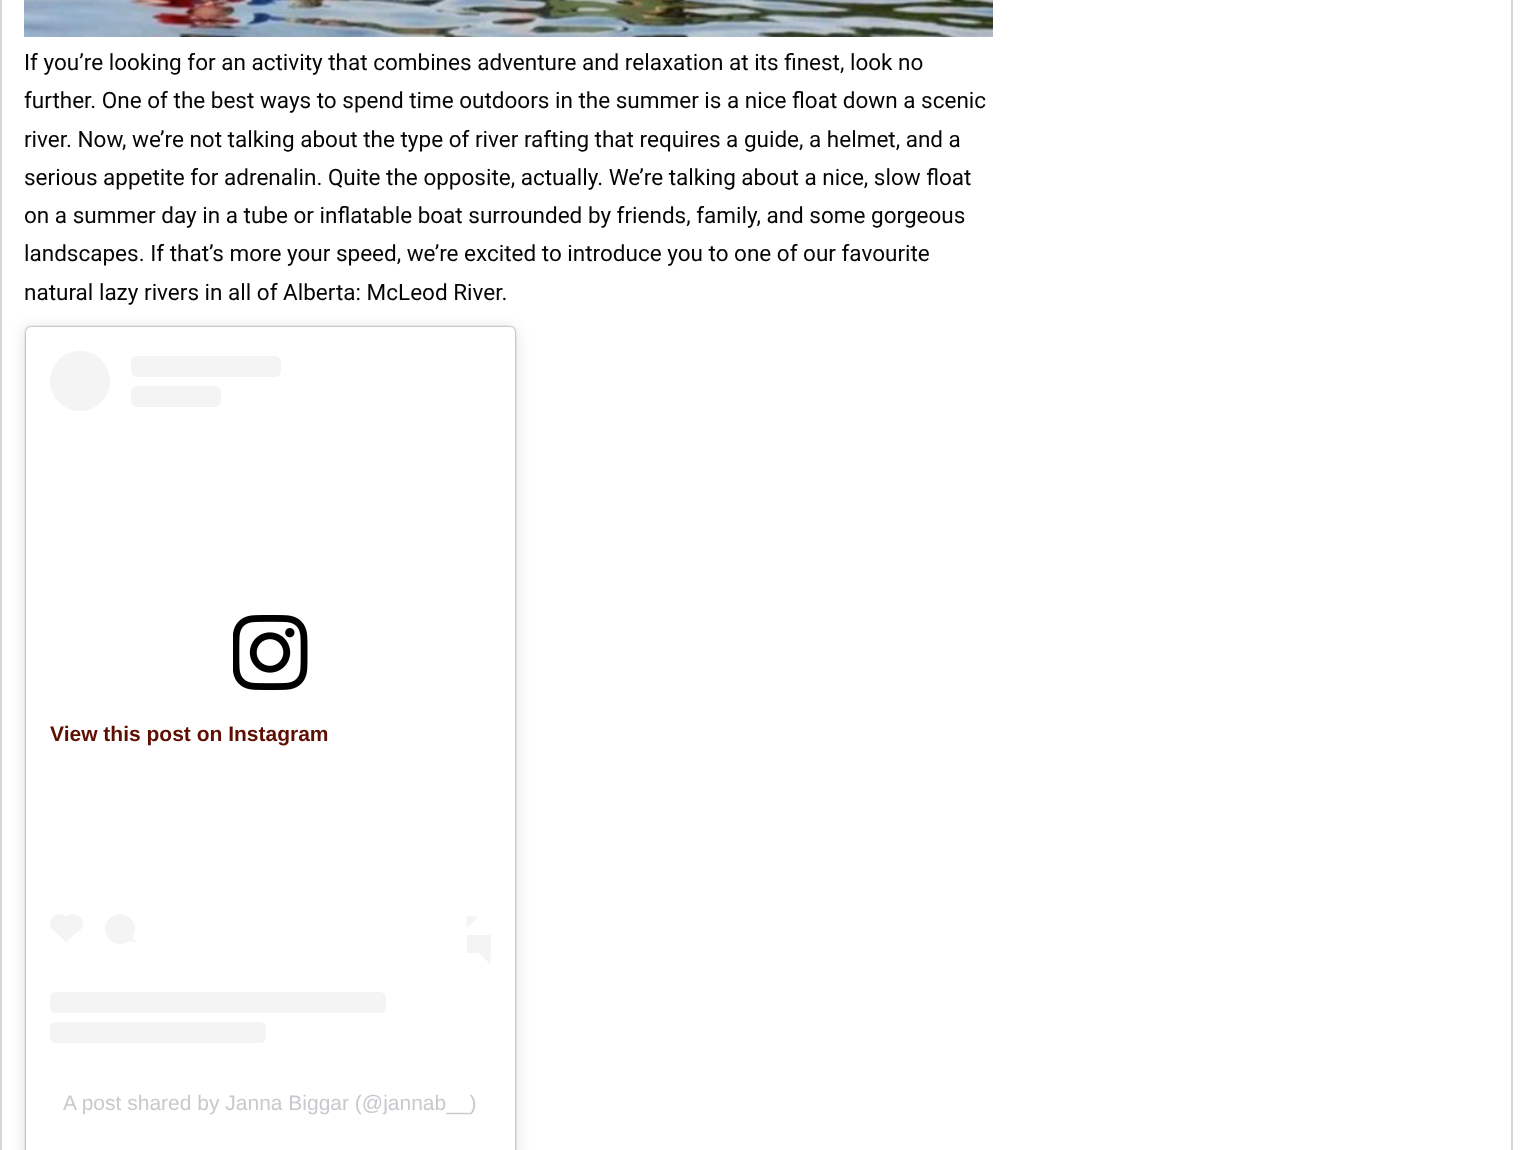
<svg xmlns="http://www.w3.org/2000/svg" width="1534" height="1150">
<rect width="100%" height="100%" fill="#fff"/>
<rect x="1511" width="2" height="1150" fill="#d5d5d5"/>
<rect width="2" height="1150" fill="#d5d5d5"/>
<image x="24" y="0" width="969" height="37" href="media/1.png"/>
<text x="24" y="70" style="font-family:Roboto;font-size:22.5px;fill:#050505">If you’re looking for an activity that combines adventure and relaxation at its finest, look no</text>
<text x="24" y="108" style="font-family:Roboto;font-size:22.5px;fill:#050505">further. One of the best ways to spend time outdoors in the summer is a nice float down a scenic</text>
<text x="24" y="147" style="font-family:Roboto;font-size:22.5px;fill:#050505">river. Now, we’re not talking about the type of river rafting that requires a guide, a helmet, and a</text>
<text x="24" y="185" style="font-family:Roboto;font-size:22.5px;fill:#050505">serious appetite for adrenalin. Quite the opposite, actually. We’re talking about a nice, slow float</text>
<text x="24" y="223" style="font-family:Roboto;font-size:22.5px;fill:#050505">on a summer day in a tube or inflatable boat surrounded by friends, family, and some gorgeous</text>
<text x="24" y="261" style="font-family:Roboto;font-size:22.5px;fill:#050505">landscapes. If that’s more your speed, we’re excited to introduce you to one of our favourite</text>
<text x="24" y="300" style="font-family:Roboto;font-size:22.5px;fill:#050505">natural lazy rivers in all of Alberta: McLeod River.</text>
<rect x="26" y="329" width="489" height="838" rx="5" fill="#00000026" filter="blur(7.5px)"/>
<rect x="26" y="327" width="489" height="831" rx="5" fill="#00000080" filter="blur(1px)"/>
<rect x="26" y="327" width="489" height="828" rx="5" fill="#fff"/>
<circle cx="80" cy="381" r="30" fill="#f4f4f4"/>
<rect x="131" y="356" width="150" height="21" rx="6" fill="#f4f4f4"/>
<rect x="131" y="386" width="90" height="21" rx="6" fill="#f4f4f4"/>
<image x="233" y="615" width="75" height="75" href="media/2.png"/>
<text x="50" y="741" style="font-family:Liberation Sans;font-size:21px;font-weight:bold;fill:#5e0f02">View this post on Instagram</text>
<circle cx="59.5" cy="923.5" r="9.5" fill="#f4f4f4"/>
<path d="M53 929l13-13l13.5 13l-13.5 13.5z" fill="#f4f4f4"/>
<rect x="63" y="914" width="20" height="19" rx="9.5" fill="#f4f4f4"/>
<circle cx="120" cy="929" r="15" fill="#f4f4f4"/>
<path d="M127.5 940.5l3-5l6 7z" fill="#f4f4f4"/>
<path d="M466.5 916.5h12l-12 12z" fill="#f4f4f4"/>
<rect x="467" y="935" width="24" height="18" fill="#f4f4f4"/>
<path d="M478.5 952.5h12v12z" fill="#f4f4f4"/>
<rect x="50" y="992" width="336" height="21" rx="6" fill="#f4f4f4"/>
<rect x="50" y="1022" width="216" height="21" rx="6" fill="#f4f4f4"/>
<text x="63" y="1110" style="font-family:Liberation Sans;font-size:21px;fill:#c9c8cd">A post shared by Janna Biggar (@jannab__)</text>
</svg>
